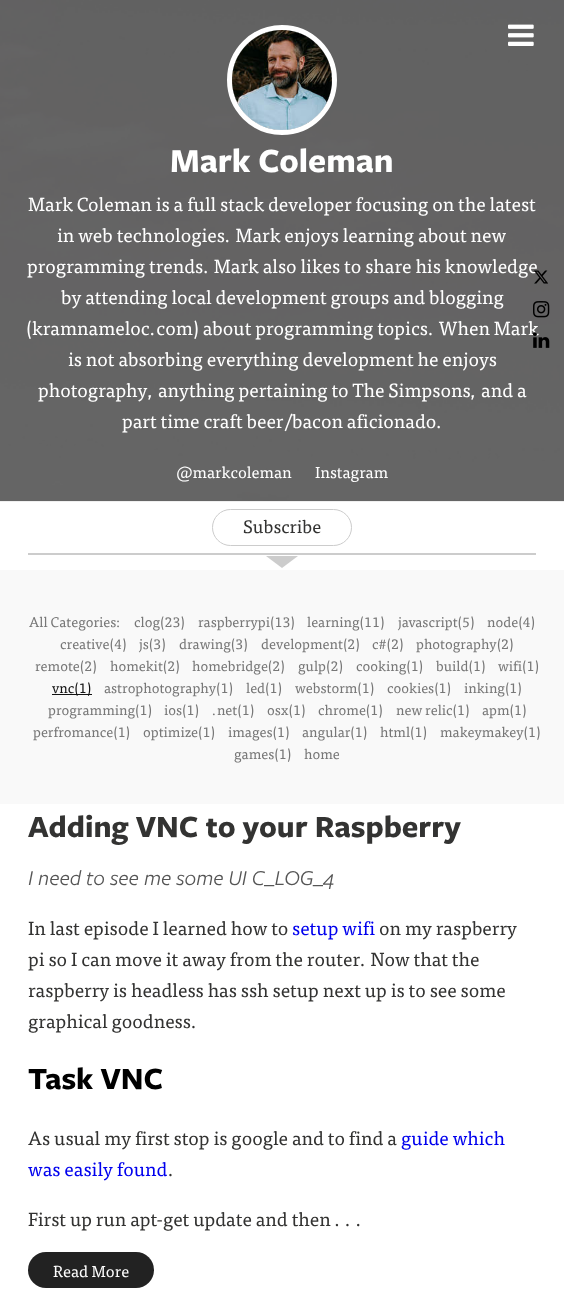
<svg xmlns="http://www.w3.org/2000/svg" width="564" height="1295">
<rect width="100%" height="100%" fill="#fff"/>
<image x="0" y="0" width="564" height="501" href="media/1.png"/>
<image x="508" y="24" width="26" height="22" href="media/2.png"/>
<circle cx="282" cy="80" r="52.5" fill="none" stroke="#fff" stroke-width="5"/>
<circle cx="282" cy="80" r="50" fill="#fff"/>
<image x="232" y="30" width="100" height="100" href="media/3.png"/>
<text x="170" y="172" style="font-family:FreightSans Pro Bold;font-size:35px;font-weight:bold;fill:#fff">Mark Coleman</text>
<text x="28" y="211" style="font-family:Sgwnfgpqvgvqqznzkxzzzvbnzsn;font-size:19px;fill:#fff">Mark Coleman is a full stack developer focusing on the latest</text>
<text x="57" y="242" style="font-family:Sgwnfgpqvgvqqznzkxzzzvbnzsn;font-size:19px;fill:#fff">in web technologies. Mark enjoys learning about new</text>
<text x="27" y="273" style="font-family:Sgwnfgpqvgvqqznzkxzzzvbnzsn;font-size:19px;fill:#fff">programming trends. Mark also likes to share his knowledge</text>
<text x="61" y="304" style="font-family:Sgwnfgpqvgvqqznzkxzzzvbnzsn;font-size:19px;fill:#fff">by attending local development groups and blogging</text>
<text x="26" y="335" style="font-family:Sgwnfgpqvgvqqznzkxzzzvbnzsn;font-size:19px;fill:#fff">(kramnameloc.com) about programming topics. When Mark</text>
<text x="68" y="366" style="font-family:Sgwnfgpqvgvqqznzkxzzzvbnzsn;font-size:19px;fill:#fff">is not absorbing everything development he enjoys</text>
<text x="38" y="397" style="font-family:Sgwnfgpqvgvqqznzkxzzzvbnzsn;font-size:19px;fill:#fff">photography, anything pertaining to The Simpsons, and a</text>
<text x="122" y="428" style="font-family:Sgwnfgpqvgvqqznzkxzzzvbnzsn;font-size:19px;fill:#fff">part time craft beer/bacon aficionado.</text>
<text x="176" y="478" style="font-family:Sgwnfgpqvgvqqznzkxzzzvbnzsn;font-size:16px;fill:#fff">@markcoleman</text>
<text x="315" y="478" style="font-family:Sgwnfgpqvgvqqznzkxzzzvbnzsn;font-size:16px;fill:#fff">Instagram</text>
<image x="534" y="270" width="14" height="14" href="media/4.png"/>
<image x="533" y="301" width="17" height="17" href="media/5.png"/>
<image x="533" y="332" width="17" height="16" href="media/6.png"/>
<rect y="501" width="564" height="1" fill="#efefef"/>
<rect x="212.5" y="509.5" width="139" height="36" rx="18" fill="none" stroke="#ccc"/>
<text x="243" y="533" style="font-family:Sgwnfgpqvgvqqznzkxzzzvbnzsn;font-size:18px;fill:#333332">Subscribe</text>
<rect x="28" y="553" width="508" height="2" fill="#ccc"/>
<path d="M266 556h32l-16 12z" fill="#ccc"/>
<rect y="570" width="564" height="234" fill="#f9f9f9"/>
<text x="29" y="627" style="font-family:Sgwnfgpqvgvqqznzkxzzzvbnzsn;font-size:14px;fill:#777">All Categories:</text>
<text x="134" y="627" style="font-family:Sgwnfgpqvgvqqznzkxzzzvbnzsn;font-size:14px;fill:#777">clog(23)</text>
<text x="198" y="627" style="font-family:Sgwnfgpqvgvqqznzkxzzzvbnzsn;font-size:14px;fill:#777">raspberrypi(13)</text>
<text x="307" y="627" style="font-family:Sgwnfgpqvgvqqznzkxzzzvbnzsn;font-size:14px;fill:#777">learning(11)</text>
<text x="398" y="627" style="font-family:Sgwnfgpqvgvqqznzkxzzzvbnzsn;font-size:14px;fill:#777">javascript(5)</text>
<text x="487" y="627" style="font-family:Sgwnfgpqvgvqqznzkxzzzvbnzsn;font-size:14px;fill:#777">node(4)</text>
<text x="60" y="649" style="font-family:Sgwnfgpqvgvqqznzkxzzzvbnzsn;font-size:14px;fill:#777">creative(4)</text>
<text x="139" y="649" style="font-family:Sgwnfgpqvgvqqznzkxzzzvbnzsn;font-size:14px;fill:#777">js(3)</text>
<text x="179" y="649" style="font-family:Sgwnfgpqvgvqqznzkxzzzvbnzsn;font-size:14px;fill:#777">drawing(3)</text>
<text x="261" y="649" style="font-family:Sgwnfgpqvgvqqznzkxzzzvbnzsn;font-size:14px;fill:#777">development(2)</text>
<text x="372" y="649" style="font-family:Sgwnfgpqvgvqqznzkxzzzvbnzsn;font-size:14px;fill:#777">c#(2)</text>
<text x="416" y="649" style="font-family:Sgwnfgpqvgvqqznzkxzzzvbnzsn;font-size:14px;fill:#777">photography(2)</text>
<text x="35" y="671" style="font-family:Sgwnfgpqvgvqqznzkxzzzvbnzsn;font-size:14px;fill:#777">remote(2)</text>
<text x="110" y="671" style="font-family:Sgwnfgpqvgvqqznzkxzzzvbnzsn;font-size:14px;fill:#777">homekit(2)</text>
<text x="192" y="671" style="font-family:Sgwnfgpqvgvqqznzkxzzzvbnzsn;font-size:14px;fill:#777">homebridge(2)</text>
<text x="298" y="671" style="font-family:Sgwnfgpqvgvqqznzkxzzzvbnzsn;font-size:14px;fill:#777">gulp(2)</text>
<text x="356" y="671" style="font-family:Sgwnfgpqvgvqqznzkxzzzvbnzsn;font-size:14px;fill:#777">cooking(1)</text>
<text x="436" y="671" style="font-family:Sgwnfgpqvgvqqznzkxzzzvbnzsn;font-size:14px;fill:#777">build(1)</text>
<text x="498" y="671" style="font-family:Sgwnfgpqvgvqqznzkxzzzvbnzsn;font-size:14px;fill:#777">wifi(1)</text>
<rect x="52" y="694" width="40" height="1" fill="#111"/>
<text x="52" y="693" style="font-family:Sgwnfgpqvgvqqznzkxzzzvbnzsn;font-size:14px;fill:#111">vnc(1)</text>
<text x="104" y="693" style="font-family:Sgwnfgpqvgvqqznzkxzzzvbnzsn;font-size:14px;fill:#777">astrophotography(1)</text>
<text x="246" y="693" style="font-family:Sgwnfgpqvgvqqznzkxzzzvbnzsn;font-size:14px;fill:#777">led(1)</text>
<text x="295" y="693" style="font-family:Sgwnfgpqvgvqqznzkxzzzvbnzsn;font-size:14px;fill:#777">webstorm(1)</text>
<text x="387" y="693" style="font-family:Sgwnfgpqvgvqqznzkxzzzvbnzsn;font-size:14px;fill:#777">cookies(1)</text>
<text x="464" y="693" style="font-family:Sgwnfgpqvgvqqznzkxzzzvbnzsn;font-size:14px;fill:#777">inking(1)</text>
<text x="48" y="715" style="font-family:Sgwnfgpqvgvqqznzkxzzzvbnzsn;font-size:14px;fill:#777">programming(1)</text>
<text x="164" y="715" style="font-family:Sgwnfgpqvgvqqznzkxzzzvbnzsn;font-size:14px;fill:#777">ios(1)</text>
<text x="212" y="715" style="font-family:Sgwnfgpqvgvqqznzkxzzzvbnzsn;font-size:14px;fill:#777">.net(1)</text>
<text x="267" y="715" style="font-family:Sgwnfgpqvgvqqznzkxzzzvbnzsn;font-size:14px;fill:#777">osx(1)</text>
<text x="318" y="715" style="font-family:Sgwnfgpqvgvqqznzkxzzzvbnzsn;font-size:14px;fill:#777">chrome(1)</text>
<text x="396" y="715" style="font-family:Sgwnfgpqvgvqqznzkxzzzvbnzsn;font-size:14px;fill:#777">new relic(1)</text>
<text x="482" y="715" style="font-family:Sgwnfgpqvgvqqznzkxzzzvbnzsn;font-size:14px;fill:#777">apm(1)</text>
<text x="33" y="737" style="font-family:Sgwnfgpqvgvqqznzkxzzzvbnzsn;font-size:14px;fill:#777">perfromance(1)</text>
<text x="143" y="737" style="font-family:Sgwnfgpqvgvqqznzkxzzzvbnzsn;font-size:14px;fill:#777">optimize(1)</text>
<text x="228" y="737" style="font-family:Sgwnfgpqvgvqqznzkxzzzvbnzsn;font-size:14px;fill:#777">images(1)</text>
<text x="302" y="737" style="font-family:Sgwnfgpqvgvqqznzkxzzzvbnzsn;font-size:14px;fill:#777">angular(1)</text>
<text x="380" y="737" style="font-family:Sgwnfgpqvgvqqznzkxzzzvbnzsn;font-size:14px;fill:#777">html(1)</text>
<text x="440" y="737" style="font-family:Sgwnfgpqvgvqqznzkxzzzvbnzsn;font-size:14px;fill:#777">makeymakey(1)</text>
<text x="234" y="759" style="font-family:Sgwnfgpqvgvqqznzkxzzzvbnzsn;font-size:14px;fill:#777">games(1)</text>
<text x="304" y="759" style="font-family:Sgwnfgpqvgvqqznzkxzzzvbnzsn;font-size:14px;fill:#777">home</text>
<text x="28" y="837" style="font-family:FreightSans Pro Bold;font-size:32px;font-weight:bold;fill:#333332">Adding VNC to your Raspberry</text>
<text x="28" y="885" style="font-family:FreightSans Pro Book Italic;font-size:22px;font-style:italic;fill:#555">I need to see me some UI C_LOG_4</text>
<text x="28" y="935" style="font-family:Sgwnfgpqvgvqqznzkxzzzvbnzsn;font-size:19px;fill:#333332">In last episode I learned how to</text>
<text x="292" y="935" style="font-family:Sgwnfgpqvgvqqznzkxzzzvbnzsn;font-size:19px;fill:#00e">setup wifi</text>
<text x="379" y="935" style="font-family:Sgwnfgpqvgvqqznzkxzzzvbnzsn;font-size:19px;fill:#333332">on my raspberry</text>
<text x="28" y="966" style="font-family:Sgwnfgpqvgvqqznzkxzzzvbnzsn;font-size:19px;fill:#333332">pi so I can move it away from the router. Now that the</text>
<text x="28" y="997" style="font-family:Sgwnfgpqvgvqqznzkxzzzvbnzsn;font-size:19px;fill:#333332">raspberry is headless has ssh setup next up is to see some</text>
<text x="28" y="1028" style="font-family:Sgwnfgpqvgvqqznzkxzzzvbnzsn;font-size:19px;fill:#333332">graphical goodness.</text>
<text x="28" y="1089" style="font-family:FreightSans Pro Bold;font-size:32px;font-weight:bold;fill:#000">Task VNC</text>
<text x="28" y="1145" style="font-family:Sgwnfgpqvgvqqznzkxzzzvbnzsn;font-size:19px;fill:#333332">As usual my first stop is google and to find a</text>
<text x="401" y="1145" style="font-family:Sgwnfgpqvgvqqznzkxzzzvbnzsn;font-size:19px;fill:#00e">guide which</text>
<text x="28" y="1176" style="font-family:Sgwnfgpqvgvqqznzkxzzzvbnzsn;font-size:19px;fill:#00e">was easily found</text>
<text x="168" y="1176" style="font-family:Sgwnfgpqvgvqqznzkxzzzvbnzsn;font-size:19px;fill:#333332">.</text>
<text x="28" y="1226" style="font-family:Sgwnfgpqvgvqqznzkxzzzvbnzsn;font-size:19px;fill:#333332">First up run apt-get update and then . . .</text>
<rect x="28" y="1252" width="126" height="36" rx="18" fill="#222"/>
<text x="53" y="1277" style="font-family:Sgwnfgpqvgvqqznzkxzzzvbnzsn;font-size:16px;fill:#fff">Read More</text>
</svg>
